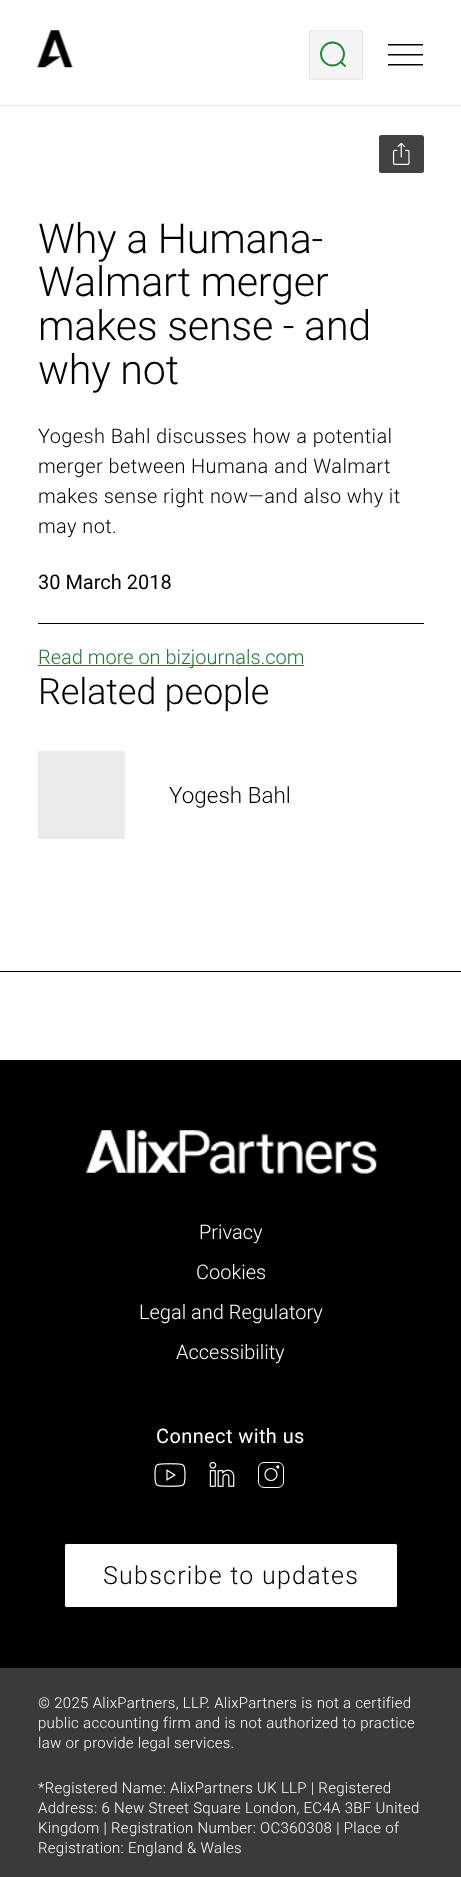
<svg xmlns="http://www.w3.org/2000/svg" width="461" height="1877">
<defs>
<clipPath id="clip1"><rect x="388" y="44" width="36" height="22"/></clipPath>
</defs>
<rect width="100%" height="100%" fill="#fff"/>
<rect y="105" width="461" height="1" fill="#e6e6e6"/>
<image x="37" y="30" width="36" height="38" href="media/1.png"/>
<rect x="309" y="30" width="54" height="50" rx="2.5" fill="#f4f4f4"/>
<rect x="309.5" y="30.5" width="53" height="49" fill="none" stroke="#0000000d"/>
<circle cx="332.5" cy="54" r="11.5" fill="none" stroke="#1d8837" stroke-width="1.9"/>
<path d="M341.5 62.5l3.5 3.5" fill="none" stroke="#1d8837" stroke-width="1.9" stroke-linecap="round"/>
<g clip-path="url(#clip1)">
<path d="M387.5 65.5v-1.5h35.5v1.5zm0-10v-1.5h35.5v1.5zm0-10v-1.5h35.5v1.5z" fill="#000"/>
</g>
<rect x="379" y="135" width="45" height="38" rx="2.5" fill="#424242"/>
<image x="392" y="143" width="18" height="22" href="media/2.png"/>
<rect x="38" y="623" width="386" height="1" fill="#000"/>
<text x="38" y="253" style="font-family:Roboto;font-size:41.25px;font-weight:300;letter-spacing:-0.25px;fill:#000">Why a Humana-</text>
<text x="38" y="296" style="font-family:Roboto;font-size:41.25px;font-weight:300;letter-spacing:-0.25px;fill:#000">Walmart merger</text>
<text x="38" y="340" style="font-family:Roboto;font-size:41.25px;font-weight:300;letter-spacing:-0.25px;fill:#000">makes sense - and</text>
<text x="38" y="384" style="font-family:Roboto;font-size:41.25px;font-weight:300;letter-spacing:-0.25px;fill:#000">why not</text>
<text x="38" y="443" style="font-family:Roboto;font-size:20px;font-weight:300;letter-spacing:0.4px;fill:#000">Yogesh Bahl discusses how a potential</text>
<text x="38" y="473" style="font-family:Roboto;font-size:20px;font-weight:300;letter-spacing:0.4px;fill:#000">merger between Humana and Walmart</text>
<text x="38" y="503" style="font-family:Roboto;font-size:20px;font-weight:300;letter-spacing:0.4px;fill:#000">makes sense right now—and also why it</text>
<text x="38" y="533" style="font-family:Roboto;font-size:20px;font-weight:300;letter-spacing:0.4px;fill:#000">may not.</text>
<text x="38" y="589" style="font-family:Roboto;font-size:20px;fill:#000">30 March 2018</text>
<rect y="971" width="461" height="1" fill="#000"/>
<rect x="38" y="665" width="266" height="1" fill="#1c7833"/>
<text x="38" y="664" style="font-family:Roboto;font-size:20px;font-weight:300;fill:#1c7833">Read more on bizjournals.com</text>
<text x="38" y="704" style="font-family:Roboto;font-size:36.25px;font-weight:300;letter-spacing:-0.25px;fill:#000">Related people</text>
<rect x="38" y="751" width="87" height="88" fill="#ebebeb"/>
<text x="169" y="803" style="font-family:Roboto;font-size:22.5px;font-weight:300;fill:#000">Yogesh Bahl</text>
<rect y="1060" width="461" height="608" fill="#000"/>
<image x="86" y="1130" width="291" height="44" href="media/3.png"/>
<text x="199" y="1239" style="font-family:Roboto;font-size:20px;font-weight:300;fill:#fff">Privacy</text>
<text x="196" y="1279" style="font-family:Roboto;font-size:20px;font-weight:300;fill:#fff">Cookies</text>
<text x="139" y="1319" style="font-family:Roboto;font-size:20px;font-weight:300;fill:#fff">Legal and Regulatory</text>
<text x="176" y="1359" style="font-family:Roboto;font-size:20px;font-weight:300;fill:#fff">Accessibility</text>
<text x="156" y="1443" style="font-family:Roboto;font-size:20px;letter-spacing:0.4px;fill:#fff">Connect with us</text>
<image x="154" y="1463" width="32" height="24" href="media/4.png"/>
<image x="209" y="1461" width="26" height="26" href="media/5.png"/>
<rect x="258.5" y="1462.5" width="25" height="25" rx="5.5" fill="none" stroke="#fff"/>
<circle cx="271" cy="1474.5" r="6" fill="none" stroke="#fff" stroke-width="1.2"/>
<circle cx="277.8" cy="1466.9" r="1.6" fill="#fff"/>
<rect x="64.5" y="1543.5" width="333" height="64" rx="2" fill="#fff" stroke="#000"/>
<text x="103" y="1584" style="font-family:Roboto;font-size:25px;font-weight:300;letter-spacing:1.25px;fill:#000">Subscribe to updates</text>
<rect y="1668" width="461" height="209" fill="#3a3a3a"/>
<text x="38" y="1708" style="font-family:Roboto;font-size:15px;font-weight:300;letter-spacing:0.3px;fill:#fff">© 2025 AlixPartners, LLP. AlixPartners is not a certified</text>
<text x="38" y="1728" style="font-family:Roboto;font-size:15px;font-weight:300;letter-spacing:0.3px;fill:#fff">public accounting firm and is not authorized to practice</text>
<text x="38" y="1748" style="font-family:Roboto;font-size:15px;font-weight:300;letter-spacing:0.3px;fill:#fff">law or provide legal services.</text>
<text x="38" y="1793" style="font-family:Roboto;font-size:15px;font-weight:300;letter-spacing:0.3px;fill:#fff">*Registered Name: AlixPartners UK LLP | Registered</text>
<text x="38" y="1813" style="font-family:Roboto;font-size:15px;font-weight:300;letter-spacing:0.3px;fill:#fff">Address: 6 New Street Square London, EC4A 3BF United</text>
<text x="38" y="1833" style="font-family:Roboto;font-size:15px;font-weight:300;letter-spacing:0.3px;fill:#fff">Kingdom | Registration Number: OC360308 | Place of</text>
<text x="38" y="1853" style="font-family:Roboto;font-size:15px;font-weight:300;letter-spacing:0.3px;fill:#fff">Registration: England &amp; Wales</text>
</svg>
